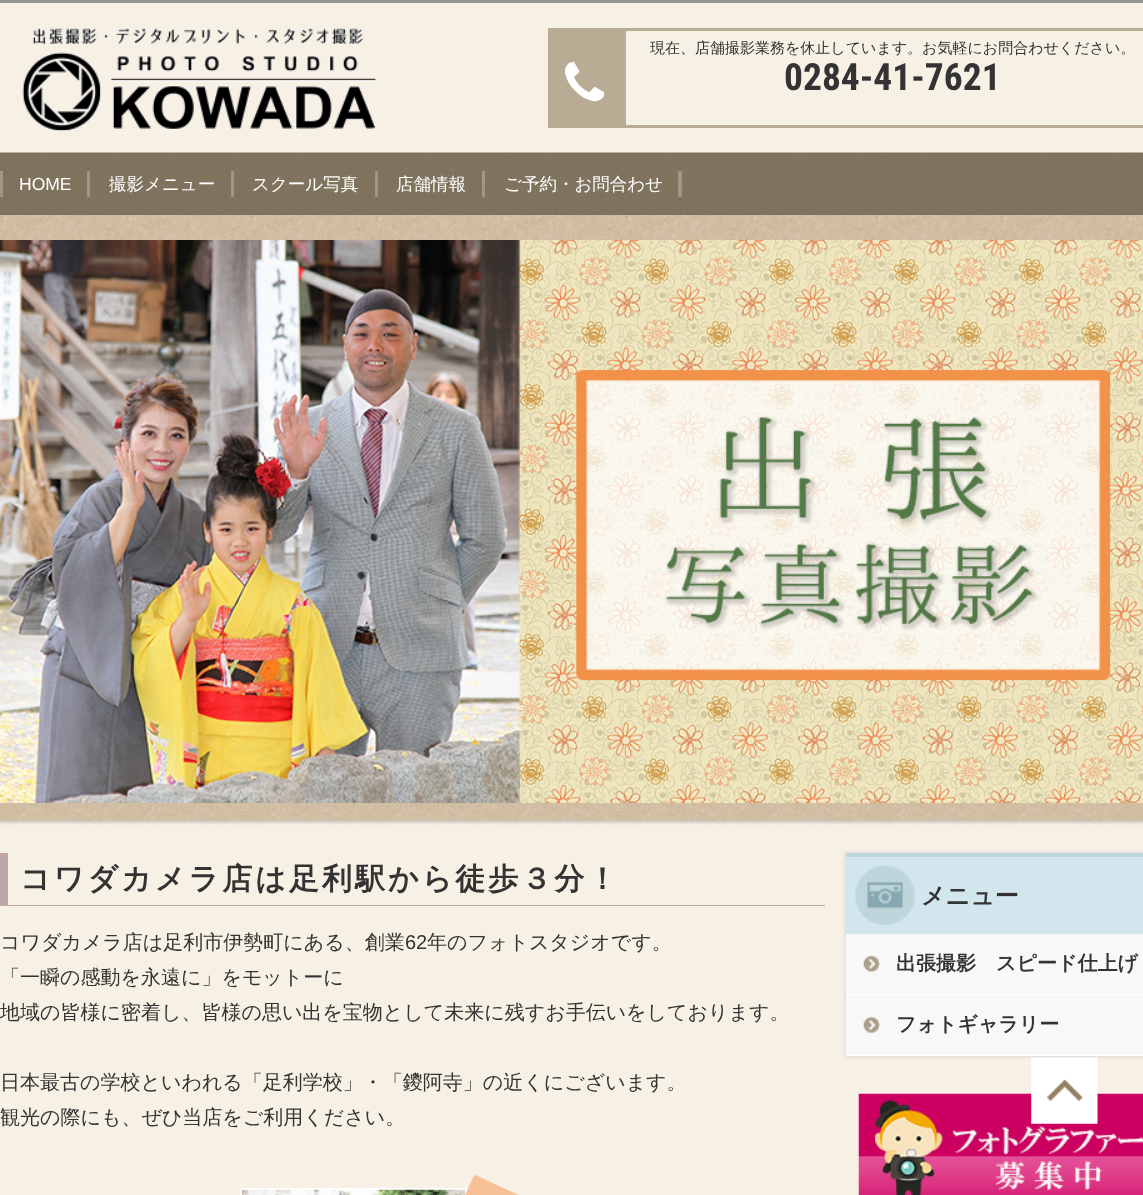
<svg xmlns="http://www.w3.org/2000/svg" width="1143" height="1195">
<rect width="100%" height="100%" fill="#f7f0e4"/>
<rect width="1143" height="3" fill="#959595"/>
<image x="22" y="27" width="355" height="105" href="media/1.png"/>
<rect x="548" y="28" width="75" height="100" fill="#b9ac95"/>
<image x="565" y="62" width="40" height="40" href="media/2.png"/>
<rect x="624.5" y="29.5" width="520" height="97" fill="none" stroke="#b9ac95" stroke-width="3"/>
<text x="650" y="53" style="font-family:WenQuanYi Zen Hei;font-size:15px;font-weight:500;fill:#333">現在、店舗撮影業務を休止しています。お気軽にお問合わせください。</text>
<text x="784" y="90" style="font-family:Roboto Condensed;font-size:37.5px;font-weight:bold;fill:#333">0284-41-7621</text>
<image x="0" y="152" width="1143" height="63" href="media/3.png"/>
<rect y="171" width="3" height="26" fill="#ffffff40"/>
<rect x="87" y="171" width="3" height="26" fill="#ffffff40"/>
<text x="19" y="190" style="font-family:Liberation Sans;font-size:17.5px;fill:#fff">HOME</text>
<rect x="231" y="171" width="3" height="26" fill="#ffffff40"/>
<text x="109" y="190" style="font-family:WenQuanYi Zen Hei;font-size:17.5px;font-weight:500;fill:#fff">撮影メニュー</text>
<rect x="375" y="171" width="3" height="26" fill="#ffffff40"/>
<text x="252" y="190" style="font-family:WenQuanYi Zen Hei;font-size:17.5px;font-weight:500;fill:#fff">スクール写真</text>
<rect x="482" y="171" width="3" height="26" fill="#ffffff40"/>
<text x="396" y="190" style="font-family:WenQuanYi Zen Hei;font-size:17.5px;font-weight:500;fill:#fff">店舗情報</text>
<rect x="678" y="171" width="4" height="26" fill="#ffffff40"/>
<text x="504" y="190" style="font-family:WenQuanYi Zen Hei;font-size:17.5px;font-weight:500;fill:#fff">ご予約・お問合わせ</text>
<image x="0" y="215" width="1143" height="610" href="media/4.png"/>
<image x="0" y="240" width="1143" height="563" href="media/5.png"/>
<rect y="905" width="825" height="1" fill="#bfa7a7"/>
<rect y="853" width="8" height="53" fill="#bfa7a7"/>
<text x="20" y="889" style="font-family:WenQuanYi Zen Hei;font-size:30px;font-weight:bold;letter-spacing:3px;fill:#333">コワダカメラ店は足利駅から徒歩３分！</text>
<text x="0" y="949" style="font-family:WenQuanYi Zen Hei;font-size:20px;font-weight:500;fill:#333">コワダカメラ店は足利市伊勢町にある、創業</text>
<text x="405" y="949" style="font-family:Liberation Sans;font-size:20px;fill:#333">62</text>
<text x="427" y="949" style="font-family:WenQuanYi Zen Hei;font-size:20px;font-weight:500;fill:#333">年のフォトスタジオです。</text>
<text x="0" y="984" style="font-family:WenQuanYi Zen Hei;font-size:20px;font-weight:500;fill:#333">「一瞬の感動を永遠に」をモットーに</text>
<text x="0" y="1019" style="font-family:WenQuanYi Zen Hei;font-size:20px;font-weight:500;fill:#333">地域の皆様に密着し、皆様の思い出を宝物として未来に残すお手伝いをしております。</text>
<text x="0" y="1089" style="font-family:WenQuanYi Zen Hei;font-size:20px;font-weight:500;fill:#333">日本最古の学校といわれる「足利学校」・「鑁阿寺」の近くにございます。</text>
<text x="0" y="1124" style="font-family:WenQuanYi Zen Hei;font-size:20px;font-weight:500;fill:#333">観光の際にも、ぜひ当店をご利用ください。</text>
<image x="240" y="1174" width="279" height="21" href="media/6.png"/>
<rect x="846" y="853" width="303" height="203" fill="#cdcdcd" filter="blur(2px)"/>
<rect x="846" y="934" width="297" height="121" fill="#f8f8f8"/>
<rect x="846" y="857" width="297" height="77" fill="#d2e7ed"/>
<image x="855" y="865" width="60" height="60" href="media/7.png"/>
<rect x="846" y="853" width="297" height="4" fill="#bed5db"/>
<text x="921" y="904" style="font-family:WenQuanYi Zen Hei;font-size:24px;font-weight:bold;fill:#333">メニュー</text>
<rect x="846" y="994" width="297" height="1" fill="#fff"/>
<image x="863" y="955" width="17" height="18" href="media/8.png"/>
<text x="896" y="970" style="font-family:WenQuanYi Zen Hei;font-size:20px;font-weight:bold;fill:#333">出張撮影　スピード仕上げ</text>
<rect x="846" y="1055" width="297" height="1" fill="#fff"/>
<image x="863" y="1016" width="17" height="18" href="media/9.png"/>
<text x="896" y="1031" style="font-family:WenQuanYi Zen Hei;font-size:20px;font-weight:bold;fill:#333">フォトギャラリー</text>
<image x="858" y="1093" width="285" height="102" href="media/10.png"/>
<image x="1031" y="1057" width="67" height="67" href="media/11.png"/>
</svg>
